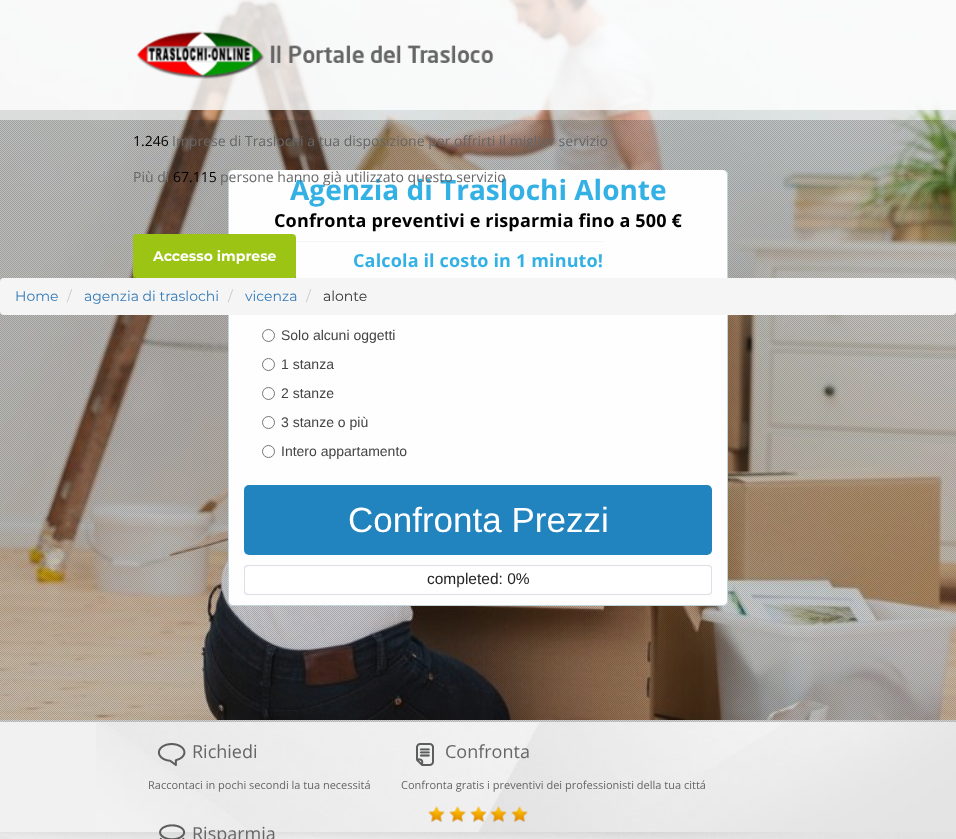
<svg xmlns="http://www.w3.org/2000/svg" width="956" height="839">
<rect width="100%" height="100%" fill="#f1f1f1"/>
<image x="0" y="0" width="956" height="720" href="media/12.png"/>
<rect width="956" height="110" fill="#ffffffcc"/>
<image x="136" y="31" width="358" height="48" href="media/1.png"/>
<image x="0" y="120" width="956" height="602" href="media/13.png"/>
<text x="133" y="146" style="font-family:Open Sans;font-size:14px;fill:#000">1.246</text>
<text x="172" y="146" style="font-family:Open Sans;font-size:14px;fill:#666">Imprese di Traslochi a tua disposizione per offrirti il miglior servizio</text>
<text x="133" y="182" style="font-family:Open Sans;font-size:14px;fill:#666">Più di</text>
<text x="173" y="182" style="font-family:Open Sans;font-size:14px;fill:#000">67.115</text>
<rect x="228" y="170" width="500" height="436" rx="5" fill="#00000026" filter="blur(0.5px)"/>
<rect x="228" y="170" width="500" height="436" rx="5" fill="#fefefe"/>
<path d="M233 170h490c3 0 5 2 5 5v426c0 3-2 5-5 5h-490c-3 0-5-2-5-5v-426c0-3 2-5 5-5zm0 0h490c2 0 4 2 4 5v426c0 2-2 4-4 4h-490c-2 0-4-2-4-4v-426c0-3 2-5 4-5z" fill="#c3d4db" fill-rule="evenodd"/>
<text x="290" y="200" style="font-family:Open Sans;font-size:28px;font-weight:bold;fill:#33b1e5">Agenzia di Traslochi Alonte</text>
<text x="220" y="182" style="font-family:Open Sans;font-size:14px;fill:#666">persone hanno già utilizzato questo servizio</text>
<path d="M133 274v3c0 2 2 4 4 4h155c2 0 4-2 4-4v-3c0 2-2 4-4 4h-155c-2 0-4-2-4-4z" fill="#84a712"/>
<rect x="133" y="234" width="163" height="44" rx="4" fill="#9bc415"/>
<text x="153" y="261" style="font-family:Montserrat;font-size:14px;font-weight:bold;fill:#fff">Accesso imprese</text>
<rect y="278" width="956" height="37" rx="4" fill="#f5f5f5"/>
<text x="15" y="301" style="font-family:Montserrat;font-size:14px;fill:#337ab7">Home</text>
<text x="67" y="301" style="font-family:Montserrat;font-size:14px;fill:#ccc">/</text>
<text x="84" y="301" style="font-family:Montserrat;font-size:14px;fill:#337ab7">agenzia di traslochi</text>
<text x="228" y="301" style="font-family:Montserrat;font-size:14px;fill:#ccc">/</text>
<text x="245" y="301" style="font-family:Montserrat;font-size:14px;fill:#337ab7">vicenza</text>
<text x="306" y="301" style="font-family:Montserrat;font-size:14px;fill:#ccc">/</text>
<text x="323" y="301" style="font-family:Montserrat;font-size:14px;fill:#333">alonte</text>
<image x="96" y="722" width="860" height="110" href="media/2.png"/>
<image x="157" y="743" width="29" height="23" href="media/3.png"/>
<text x="192" y="758" style="font-family:Open Sans;font-size:18px;fill:#666">Richiedi</text>
<text x="148" y="789" style="font-family:Open Sans;font-size:11px;fill:#666">Raccontaci in pochi secondi la tua necessitá</text>
<image x="416" y="743" width="18" height="23" href="media/4.png"/>
<text x="445" y="758" style="font-family:Open Sans;font-size:18px;fill:#666">Confronta</text>
<text x="401" y="789" style="font-family:Open Sans;font-size:11px;fill:#666">Confronta gratis i preventivi dei professionisti della tua cittá</text>
<image x="0" y="832" width="956" height="7" href="media/11.png"/>
<image x="159" y="824" width="27" height="15" href="media/5.png"/>
<text x="192" y="840" style="font-family:Open Sans;font-size:18px;fill:#666">Risparmia</text>
<image x="428" y="806" width="17" height="16" href="media/6.png"/>
<image x="449" y="806" width="17" height="16" href="media/7.png"/>
<image x="470" y="806" width="17" height="16" href="media/8.png"/>
<image x="490" y="806" width="17" height="16" href="media/9.png"/>
<image x="511" y="806" width="17" height="16" href="media/10.png"/>
<text x="274" y="227" style="font-family:Open Sans;font-size:18px;font-weight:bold;letter-spacing:0.15px;fill:#000">Confronta preventivi e risparmia fino a 500 €</text>
<rect x="296" y="241" width="308" height="1" fill="#f2f6f7"/>
<text x="353" y="267" style="font-family:Open Sans;font-size:18px;font-weight:bold;letter-spacing:0.15px;fill:#33b1e5">Calcola il costo in 1 minuto!</text>
<circle cx="268.5" cy="335.5" r="6" fill="none" stroke="#767676"/>
<text x="281" y="340" style="font-family:Liberation Sans;font-size:14px;fill:#444">Solo alcuni oggetti</text>
<circle cx="268.5" cy="364.5" r="6" fill="none" stroke="#767676"/>
<text x="281" y="369" style="font-family:Liberation Sans;font-size:14px;fill:#444">1 stanza</text>
<circle cx="268.5" cy="393.5" r="6" fill="none" stroke="#767676"/>
<text x="281" y="398" style="font-family:Liberation Sans;font-size:14px;fill:#444">2 stanze</text>
<circle cx="268.5" cy="422.5" r="6" fill="none" stroke="#767676"/>
<text x="281" y="427" style="font-family:Liberation Sans;font-size:14px;fill:#444">3 stanze o più</text>
<circle cx="268.5" cy="451.5" r="6" fill="none" stroke="#767676"/>
<text x="281" y="456" style="font-family:Liberation Sans;font-size:14px;fill:#444">Intero appartamento</text>
<rect x="244" y="485" width="468" height="70" rx="5" fill="#2184be"/>
<text x="348" y="532" style="font-family:Liberation Sans;font-size:35px;fill:#fff">Confronta Prezzi</text>
<rect x="244" y="565" width="468" height="30" rx="4" fill="#00000026" filter="blur(0.5px)"/>
<rect x="244.5" y="565.5" width="467" height="29" rx="3.5" fill="#fff" stroke="#dde0e8"/>
<text x="427" y="584" style="font-family:Liberation Sans;font-size:15.5px;fill:#222">completed: 0%</text>
</svg>
